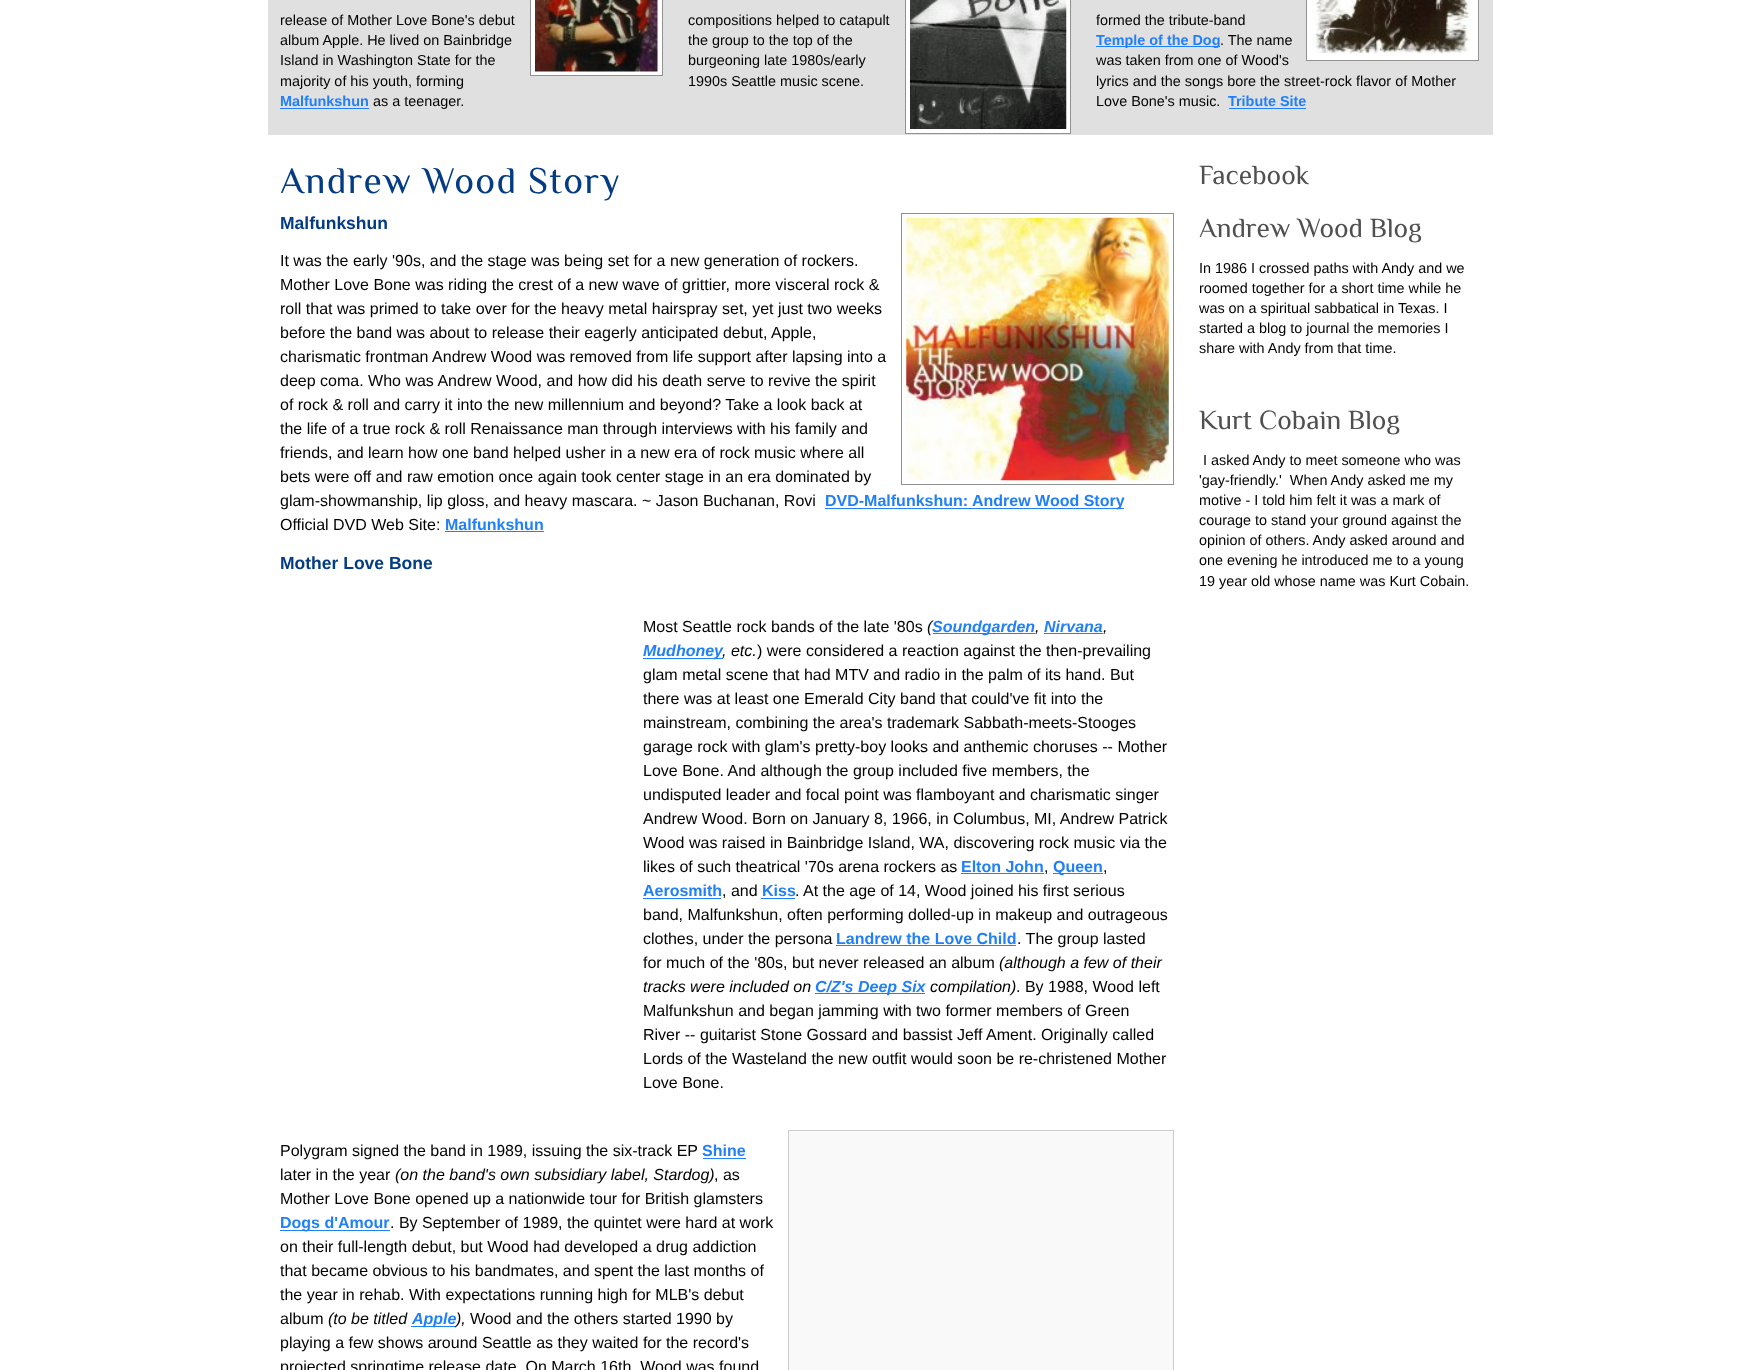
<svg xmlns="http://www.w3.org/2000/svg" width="1759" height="1370">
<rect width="100%" height="100%" fill="#fff"/>
<rect x="268" width="1225" height="135" fill="#e0e0e0"/>
<text x="280" y="25" style="font-family:Liberation Sans;font-size:14.4px;fill:#000">release of Mother Love Bone's debut</text>
<rect x="530.5" y="-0.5" width="132" height="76" fill="#fff" stroke="#919191"/>
<image x="535" y="0" width="123" height="72" href="media/1.png"/>
<text x="280" y="45" style="font-family:Liberation Sans;font-size:14.4px;fill:#000">album Apple. He lived on Bainbridge</text>
<text x="280" y="65" style="font-family:Liberation Sans;font-size:14.4px;fill:#000">Island in Washington State for the</text>
<text x="280" y="86" style="font-family:Liberation Sans;font-size:14.4px;fill:#000">majority of his youth, forming</text>
<text x="280" y="106" style="font-family:Liberation Sans;font-size:14.4px;font-weight:bold;fill:#207ffa">Malfunkshun</text>
<rect x="280" y="108" width="89" height="1" fill="#207ffa"/>
<text x="373" y="106" style="font-family:Liberation Sans;font-size:14.4px;fill:#000">as a teenager.</text>
<text x="688" y="25" style="font-family:Liberation Sans;font-size:14.4px;fill:#000">compositions helped to catapult</text>
<rect x="905.5" y="-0.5" width="165" height="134" fill="#fff" stroke="#919191"/>
<image x="910" y="0" width="157" height="129" href="media/2.png"/>
<text x="688" y="45" style="font-family:Liberation Sans;font-size:14.4px;fill:#000">the group to the top of the</text>
<text x="688" y="65" style="font-family:Liberation Sans;font-size:14.4px;fill:#000">burgeoning late 1980s/early</text>
<text x="688" y="86" style="font-family:Liberation Sans;font-size:14.4px;fill:#000">1990s Seattle music scene.</text>
<text x="1096" y="25" style="font-family:Liberation Sans;font-size:14.4px;fill:#000">formed the tribute-band</text>
<rect x="1306.5" y="-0.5" width="172" height="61" fill="#fff" stroke="#919191"/>
<image x="1311" y="0" width="160" height="54" href="media/3.png"/>
<rect x="1096" y="46" width="124" height="1" fill="#207ffa"/>
<text x="1096" y="45" style="font-family:Liberation Sans;font-size:14.4px;font-weight:bold;fill:#207ffa">Temple of the Dog</text>
<text x="1220" y="45" style="font-family:Liberation Sans;font-size:14.4px;fill:#000">. The name</text>
<text x="1096" y="65" style="font-family:Liberation Sans;font-size:14.4px;fill:#000">was taken from one of Wood's</text>
<text x="1096" y="86" style="font-family:Liberation Sans;font-size:14.4px;fill:#000">lyrics and the songs bore the street-rock flavor of Mother</text>
<text x="1096" y="106" style="font-family:Liberation Sans;font-size:14.4px;fill:#000">Love Bone's music.</text>
<text x="1228" y="106" style="font-family:Liberation Sans;font-size:14.4px;font-weight:bold;fill:#207ffa">Tribute Site</text>
<rect x="1229" y="108" width="77" height="1" fill="#207ffa"/>
<text x="280" y="193" style="font-family:Philosopher;font-size:37.5px;letter-spacing:1.25px;fill:#033c83">Andrew Wood Story</text>
<text x="280" y="229" style="font-family:Liberation Sans;font-size:17.5px;font-weight:bold;fill:#033c83">Malfunkshun</text>
<rect x="901.5" y="213.5" width="272" height="271" fill="none" stroke="#919191"/>
<image x="906" y="217" width="263" height="264" href="media/4.png"/>
<text x="280" y="266" style="font-family:Liberation Sans;font-size:16px;fill:#000">It was the early '90s, and the stage was being set for a new generation of rockers.</text>
<text x="280" y="290" style="font-family:Liberation Sans;font-size:16px;fill:#000">Mother Love Bone was riding the crest of a new wave of grittier, more visceral rock &amp;</text>
<text x="280" y="314" style="font-family:Liberation Sans;font-size:16px;fill:#000">roll that was primed to take over for the heavy metal hairspray set, yet just two weeks</text>
<text x="280" y="338" style="font-family:Liberation Sans;font-size:16px;fill:#000">before the band was about to release their eagerly anticipated debut, Apple,</text>
<text x="280" y="362" style="font-family:Liberation Sans;font-size:16px;fill:#000">charismatic frontman Andrew Wood was removed from life support after lapsing into a</text>
<text x="280" y="386" style="font-family:Liberation Sans;font-size:16px;fill:#000">deep coma. Who was Andrew Wood, and how did his death serve to revive the spirit</text>
<text x="280" y="410" style="font-family:Liberation Sans;font-size:16px;fill:#000">of rock &amp; roll and carry it into the new millennium and beyond? Take a look back at</text>
<text x="280" y="434" style="font-family:Liberation Sans;font-size:16px;fill:#000">the life of a true rock &amp; roll Renaissance man through interviews with his family and</text>
<text x="280" y="458" style="font-family:Liberation Sans;font-size:16px;fill:#000">friends, and learn how one band helped usher in a new era of rock music where all</text>
<text x="280" y="482" style="font-family:Liberation Sans;font-size:16px;fill:#000">bets were off and raw emotion once again took center stage in an era dominated by</text>
<text x="280" y="506" style="font-family:Liberation Sans;font-size:16px;fill:#000">glam-showmanship, lip gloss, and heavy mascara. ~ Jason Buchanan, Rovi</text>
<rect x="825" y="508" width="299" height="1" fill="#207ffa"/>
<text x="825" y="506" style="font-family:Liberation Sans;font-size:16px;font-weight:bold;fill:#207ffa">DVD-Malfunkshun: Andrew Wood Story</text>
<text x="280" y="530" style="font-family:Liberation Sans;font-size:16px;fill:#000">Official DVD Web Site:</text>
<text x="445" y="530" style="font-family:Liberation Sans;font-size:16px;font-weight:bold;fill:#207ffa">Malfunkshun</text>
<rect x="445" y="531" width="99" height="1" fill="#207ffa"/>
<text x="280" y="569" style="font-family:Liberation Sans;font-size:17.5px;font-weight:bold;fill:#033c83">Mother Love Bone</text>
<text x="643" y="632" style="font-family:Liberation Sans;font-size:16px;fill:#000">Most Seattle rock bands of the late '80s</text>
<text x="927" y="632" style="font-family:Liberation Sans;font-size:16px;font-style:italic;fill:#000">(</text>
<rect x="933" y="633" width="102" height="1" fill="#207ffa"/>
<text x="932" y="632" style="font-family:Liberation Sans;font-size:16px;font-weight:bold;font-style:italic;fill:#207ffa">Soundgarden</text>
<text x="1035" y="632" style="font-family:Liberation Sans;font-size:16px;font-style:italic;fill:#000">,</text>
<text x="1044" y="632" style="font-family:Liberation Sans;font-size:16px;font-weight:bold;font-style:italic;fill:#207ffa">Nirvana</text>
<rect x="1044" y="633" width="59" height="1" fill="#207ffa"/>
<text x="1103" y="632" style="font-family:Liberation Sans;font-size:16px;font-style:italic;fill:#000">,</text>
<rect x="643" y="658" width="80" height="1" fill="#207ffa"/>
<text x="643" y="656" style="font-family:Liberation Sans;font-size:16px;font-weight:bold;font-style:italic;fill:#207ffa">Mudhoney</text>
<text x="722" y="656" style="font-family:Liberation Sans;font-size:16px;font-style:italic;fill:#000">, etc.</text>
<text x="757" y="656" style="font-family:Liberation Sans;font-size:16px;fill:#000">) were considered a reaction against the then-prevailing</text>
<text x="643" y="680" style="font-family:Liberation Sans;font-size:16px;fill:#000">glam metal scene that had MTV and radio in the palm of its hand. But</text>
<text x="643" y="704" style="font-family:Liberation Sans;font-size:16px;fill:#000">there was at least one Emerald City band that could've fit into the</text>
<text x="643" y="728" style="font-family:Liberation Sans;font-size:16px;fill:#000">mainstream, combining the area's trademark Sabbath-meets-Stooges</text>
<text x="643" y="752" style="font-family:Liberation Sans;font-size:16px;fill:#000">garage rock with glam's pretty-boy looks and anthemic choruses -- Mother</text>
<text x="643" y="776" style="font-family:Liberation Sans;font-size:16px;fill:#000">Love Bone. And although the group included five members, the</text>
<text x="643" y="800" style="font-family:Liberation Sans;font-size:16px;fill:#000">undisputed leader and focal point was flamboyant and charismatic singer</text>
<text x="643" y="824" style="font-family:Liberation Sans;font-size:16px;fill:#000">Andrew Wood. Born on January 8, 1966, in Columbus, MI, Andrew Patrick</text>
<text x="643" y="848" style="font-family:Liberation Sans;font-size:16px;fill:#000">Wood was raised in Bainbridge Island, WA, discovering rock music via the</text>
<text x="643" y="872" style="font-family:Liberation Sans;font-size:16px;fill:#000">likes of such theatrical '70s arena rockers as</text>
<text x="961" y="872" style="font-family:Liberation Sans;font-size:16px;font-weight:bold;fill:#207ffa">Elton John</text>
<rect x="961" y="873" width="83" height="1" fill="#207ffa"/>
<text x="1044" y="872" style="font-family:Liberation Sans;font-size:16px;fill:#000">,</text>
<rect x="1053" y="873" width="50" height="1" fill="#207ffa"/>
<text x="1053" y="872" style="font-family:Liberation Sans;font-size:16px;font-weight:bold;fill:#207ffa">Queen</text>
<text x="1103" y="872" style="font-family:Liberation Sans;font-size:16px;fill:#000">,</text>
<text x="643" y="896" style="font-family:Liberation Sans;font-size:16px;font-weight:bold;fill:#207ffa">Aerosmith</text>
<rect x="643" y="898" width="78" height="1" fill="#207ffa"/>
<text x="722" y="896" style="font-family:Liberation Sans;font-size:16px;fill:#000">, and</text>
<text x="762" y="896" style="font-family:Liberation Sans;font-size:16px;font-weight:bold;fill:#207ffa">Kiss</text>
<rect x="761" y="898" width="34" height="1" fill="#207ffa"/>
<text x="795" y="896" style="font-family:Liberation Sans;font-size:16px;fill:#000">.</text>
<text x="803" y="896" style="font-family:Liberation Sans;font-size:16px;fill:#000">At the age of 14, Wood joined his first serious</text>
<text x="643" y="920" style="font-family:Liberation Sans;font-size:16px;fill:#000">band, Malfunkshun, often performing dolled-up in makeup and outrageous</text>
<text x="643" y="944" style="font-family:Liberation Sans;font-size:16px;fill:#000">clothes, under the persona</text>
<text x="836" y="944" style="font-family:Liberation Sans;font-size:16px;font-weight:bold;fill:#207ffa">Landrew the Love Child</text>
<rect x="836" y="945" width="180" height="1" fill="#207ffa"/>
<text x="1017" y="944" style="font-family:Liberation Sans;font-size:16px;fill:#000">. The group lasted</text>
<text x="643" y="968" style="font-family:Liberation Sans;font-size:16px;fill:#000">for much of the '80s, but never released an album</text>
<text x="999" y="968" style="font-family:Liberation Sans;font-size:16px;font-style:italic;fill:#000">(although a few of their</text>
<text x="643" y="992" style="font-family:Liberation Sans;font-size:16px;font-style:italic;fill:#000">tracks were included on</text>
<rect x="815" y="993" width="110" height="1" fill="#207ffa"/>
<text x="815" y="992" style="font-family:Liberation Sans;font-size:16px;font-weight:bold;font-style:italic;fill:#207ffa">C/Z's Deep Six</text>
<text x="930" y="992" style="font-family:Liberation Sans;font-size:16px;font-style:italic;fill:#000">compilation)</text>
<text x="1016" y="992" style="font-family:Liberation Sans;font-size:16px;fill:#000">. By 1988, Wood left</text>
<text x="643" y="1016" style="font-family:Liberation Sans;font-size:16px;fill:#000">Malfunkshun and began jamming with two former members of Green</text>
<text x="643" y="1040" style="font-family:Liberation Sans;font-size:16px;fill:#000">River -- guitarist Stone Gossard and bassist Jeff Ament. Originally called</text>
<text x="643" y="1064" style="font-family:Liberation Sans;font-size:16px;fill:#000">Lords of the Wasteland the new outfit would soon be re-christened Mother</text>
<text x="643" y="1088" style="font-family:Liberation Sans;font-size:16px;fill:#000">Love Bone.</text>
<text x="280" y="1156" style="font-family:Liberation Sans;font-size:16px;fill:#000">Polygram signed the band in 1989, issuing the six-track EP</text>
<text x="702" y="1156" style="font-family:Liberation Sans;font-size:16px;font-weight:bold;fill:#207ffa">Shine</text>
<rect x="703" y="1158" width="43" height="1" fill="#207ffa"/>
<text x="280" y="1180" style="font-family:Liberation Sans;font-size:16px;fill:#000">later in the year</text>
<text x="395" y="1180" style="font-family:Liberation Sans;font-size:16px;font-style:italic;fill:#000">(on the band's own subsidiary label, Stardog)</text>
<text x="714" y="1180" style="font-family:Liberation Sans;font-size:16px;fill:#000">, as</text>
<text x="280" y="1204" style="font-family:Liberation Sans;font-size:16px;fill:#000">Mother Love Bone opened up a nationwide tour for British glamsters</text>
<rect x="280" y="1230" width="110" height="1" fill="#207ffa"/>
<text x="280" y="1228" style="font-family:Liberation Sans;font-size:16px;font-weight:bold;fill:#207ffa">Dogs d'Amour</text>
<text x="390" y="1228" style="font-family:Liberation Sans;font-size:16px;fill:#000">. By September of 1989, the quintet were hard at work</text>
<text x="280" y="1252" style="font-family:Liberation Sans;font-size:16px;fill:#000">on their full-length debut, but Wood had developed a drug addiction</text>
<text x="280" y="1276" style="font-family:Liberation Sans;font-size:16px;fill:#000">that became obvious to his bandmates, and spent the last months of</text>
<text x="280" y="1300" style="font-family:Liberation Sans;font-size:16px;fill:#000">the year in rehab. With expectations running high for MLB's debut</text>
<text x="280" y="1324" style="font-family:Liberation Sans;font-size:16px;fill:#000">album</text>
<text x="328" y="1324" style="font-family:Liberation Sans;font-size:16px;font-style:italic;fill:#000">(to be titled</text>
<rect x="411" y="1326" width="45" height="1" fill="#207ffa"/>
<text x="412" y="1324" style="font-family:Liberation Sans;font-size:16px;font-weight:bold;font-style:italic;fill:#207ffa">Apple</text>
<text x="456" y="1324" style="font-family:Liberation Sans;font-size:16px;font-style:italic;fill:#000">),</text>
<text x="470" y="1324" style="font-family:Liberation Sans;font-size:16px;fill:#000">Wood and the others started 1990 by</text>
<text x="280" y="1348" style="font-family:Liberation Sans;font-size:16px;fill:#000">playing a few shows around Seattle as they waited for the record's</text>
<text x="280" y="1372" style="font-family:Liberation Sans;font-size:16px;fill:#000">projected springtime release date. On March 16th, Wood was found</text>
<rect x="788.5" y="1130.5" width="385" height="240" fill="#f9f9f9" stroke="#ccc"/>
<text x="1199" y="184" style="font-family:Philosopher;font-size:27.5px;fill:#505050">Facebook</text>
<text x="1199" y="237" style="font-family:Philosopher;font-size:27.5px;fill:#505050">Andrew Wood Blog</text>
<text x="1199" y="273" style="font-family:Liberation Sans;font-size:14.4px;fill:#000">In 1986 I crossed paths with Andy and we</text>
<text x="1199" y="293" style="font-family:Liberation Sans;font-size:14.4px;fill:#000">roomed together for a short time while he</text>
<text x="1199" y="313" style="font-family:Liberation Sans;font-size:14.4px;fill:#000">was on a spiritual sabbatical in Texas. I</text>
<text x="1199" y="333" style="font-family:Liberation Sans;font-size:14.4px;fill:#000">started a blog to journal the memories I</text>
<text x="1199" y="353" style="font-family:Liberation Sans;font-size:14.4px;fill:#000">share with Andy from that time.</text>
<text x="1199" y="429" style="font-family:Philosopher;font-size:27.5px;fill:#505050">Kurt Cobain Blog</text>
<text x="1203" y="465" style="font-family:Liberation Sans;font-size:14.4px;fill:#000">I asked Andy to meet someone who was</text>
<text x="1199" y="485" style="font-family:Liberation Sans;font-size:14.4px;fill:#000" xml:space="preserve">'gay-friendly.'  When Andy asked me my</text>
<text x="1199" y="505" style="font-family:Liberation Sans;font-size:14.4px;fill:#000">motive - I told him felt it was a mark of</text>
<text x="1199" y="525" style="font-family:Liberation Sans;font-size:14.4px;fill:#000">courage to stand your ground against the</text>
<text x="1199" y="545" style="font-family:Liberation Sans;font-size:14.4px;fill:#000">opinion of others. Andy asked around and</text>
<text x="1199" y="565" style="font-family:Liberation Sans;font-size:14.4px;fill:#000">one evening he introduced me to a young</text>
<text x="1199" y="586" style="font-family:Liberation Sans;font-size:14.4px;fill:#000">19 year old whose name was Kurt Cobain.</text>
</svg>
